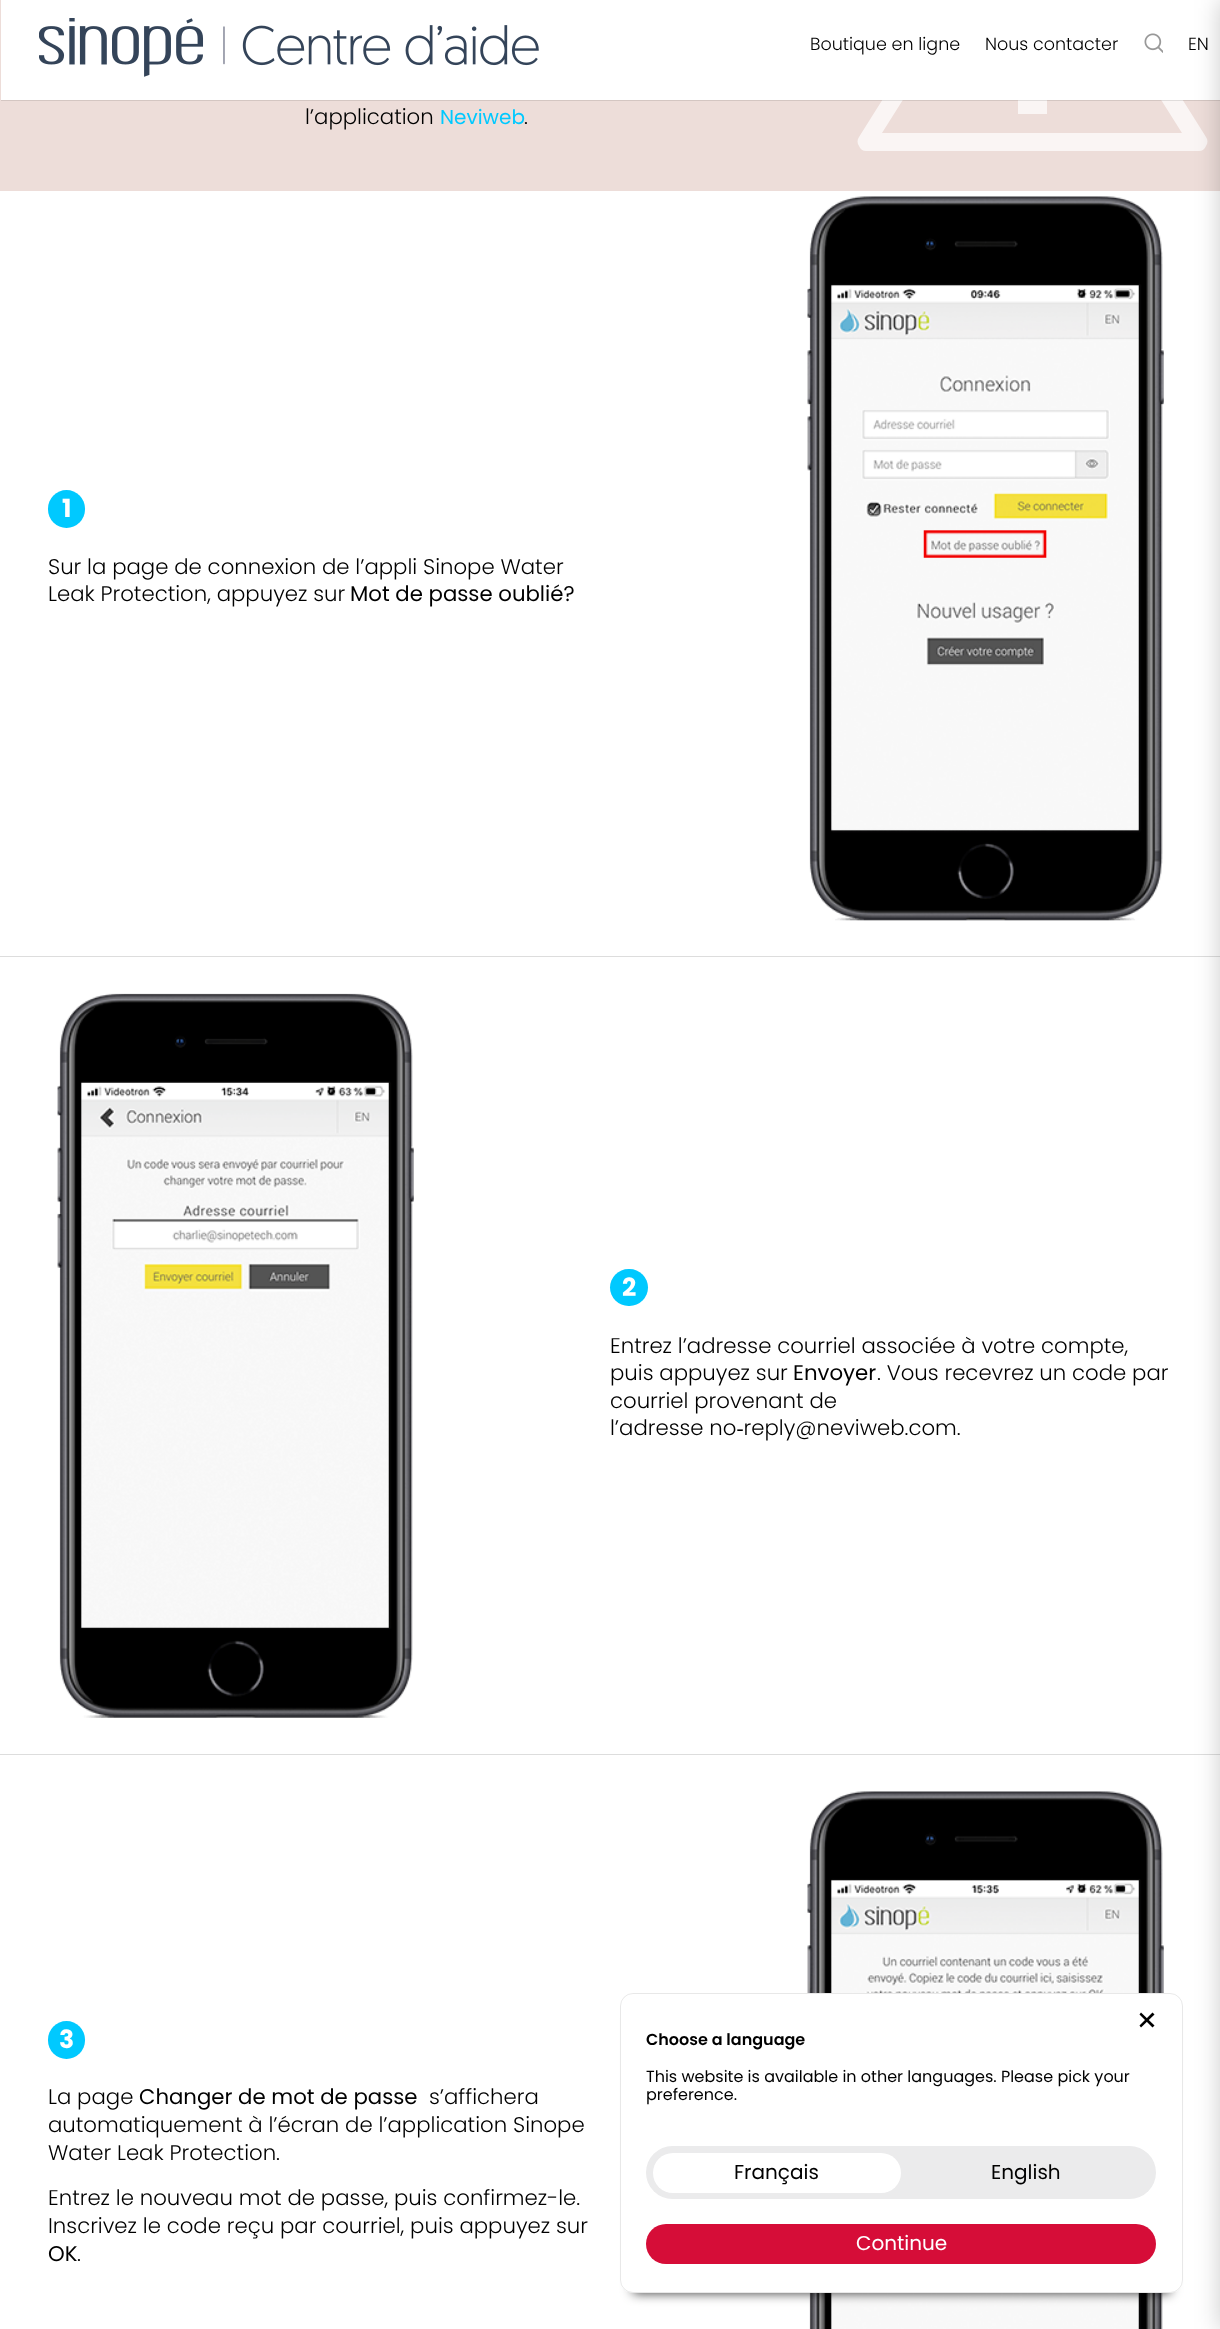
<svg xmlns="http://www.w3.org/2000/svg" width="1220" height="2329">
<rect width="100%" height="100%" fill="#fff"/>
<rect width="1220" height="191" fill="#edddd9"/>
<path d="M1199 151h-333c-3 0-6-2-7-5c-2-3-2-6 0-9l166-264c3-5 12-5 15 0l166 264c2 3 2 6 0 9c-1 3-4 5-7 5zm-317-18h300l-150-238z" fill="#faf5f4"/>
<path d="M1017-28v-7h31v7l-8 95h-14zm1 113h29v29h-29z" fill="#faf5f4"/>
<rect x="1" y="100" width="1219" height="1" fill="#0000001a"/>
<rect x="1" width="1219" height="100" fill="#fff"/>
<rect y="956" width="1220" height="1" fill="#ddd"/>
<rect y="1754" width="1220" height="1" fill="#ddd"/>
<rect x="1220" width="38" height="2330" fill="#00000033" filter="blur(12.5px)"/>
<image x="39" y="18" width="500" height="59" href="media/1.png"/>
<text x="810" y="50" style="font-family:Poppins;font-size:17.5px;font-weight:300;fill:#000">Boutique en ligne</text>
<text x="985" y="50" style="font-family:Poppins;font-size:17.5px;font-weight:300;fill:#000">Nous contacter</text>
<image x="1144" y="33" width="19" height="20" href="media/2.png"/>
<text x="1188" y="50" style="font-family:Poppins;font-size:17.5px;font-weight:300;fill:#000">EN</text>
<text x="305" y="124" style="font-family:Poppins;font-size:21.25px;font-weight:300;fill:#000">l’application</text>
<text x="440" y="124" style="font-family:Poppins;font-size:20px;fill:#00c9ff">Neviweb</text>
<text x="524" y="124" style="font-family:Poppins;font-size:21.25px;font-weight:300;fill:#000">.</text>
<rect x="48" y="490" width="37" height="38" rx="18.5" fill="#00c9ff"/>
<text x="62" y="517" style="font-family:Poppins;font-size:25px;font-weight:bold;fill:#fff">1</text>
<text x="48" y="574" style="font-family:Poppins;font-size:21.25px;font-weight:300;fill:#000">Sur la page de connexion de l’appli Sinope Water</text>
<text x="48" y="601" style="font-family:Poppins;font-size:21.25px;font-weight:300;fill:#000">Leak Protection, appuyez sur</text>
<text x="350" y="601" style="font-family:Poppins;font-size:21.25px;fill:#000">Mot de passe oublié?</text>
<image x="807" y="196" width="357" height="725" href="media/3.png"/>
<image x="57" y="993" width="357" height="725" href="media/4.png"/>
<rect x="610" y="1269" width="38" height="37" rx="18.5" fill="#00c9ff"/>
<text x="622" y="1296" style="font-family:Poppins;font-size:25px;font-weight:bold;fill:#fff">2</text>
<text x="610" y="1353" style="font-family:Poppins;font-size:21.25px;font-weight:300;fill:#000">Entrez l’adresse courriel associée à votre compte,</text>
<text x="610" y="1380" style="font-family:Poppins;font-size:21.25px;font-weight:300;fill:#000">puis appuyez sur</text>
<text x="793" y="1380" style="font-family:Poppins;font-size:21.25px;fill:#000">Envoyer</text>
<text x="877" y="1380" style="font-family:Poppins;font-size:21.25px;font-weight:300;fill:#000">. Vous recevrez un code par</text>
<text x="610" y="1408" style="font-family:Poppins;font-size:21.25px;font-weight:300;fill:#000">courriel provenant de</text>
<text x="610" y="1435" style="font-family:Poppins;font-size:21.25px;font-weight:300;fill:#000">l’adresse no‑reply@neviweb.com.</text>
<rect x="48" y="2021" width="37" height="38" rx="18.5" fill="#00c9ff"/>
<text x="59" y="2048" style="font-family:Poppins;font-size:25px;font-weight:bold;fill:#fff">3</text>
<text x="48" y="2104" style="font-family:Poppins;font-size:21.25px;font-weight:300;fill:#000">La page</text>
<text x="139" y="2104" style="font-family:Poppins;font-size:21.25px;fill:#000">Changer de mot de passe</text>
<text x="429" y="2104" style="font-family:Poppins;font-size:21.25px;font-weight:300;fill:#000">s’affichera</text>
<text x="48" y="2132" style="font-family:Poppins;font-size:21.25px;font-weight:300;fill:#000">automatiquement à l’écran de l’application Sinope</text>
<text x="48" y="2160" style="font-family:Poppins;font-size:21.25px;font-weight:300;fill:#000">Water Leak Protection.</text>
<text x="48" y="2205" style="font-family:Poppins;font-size:21.25px;font-weight:300;fill:#000">Entrez le nouveau mot de passe, puis confirmez-le.</text>
<text x="48" y="2233" style="font-family:Poppins;font-size:21.25px;font-weight:300;fill:#000">Inscrivez le code reçu par courriel, puis appuyez sur</text>
<text x="48" y="2261" style="font-family:Poppins;font-size:21.25px;fill:#000">OK</text>
<text x="77" y="2261" style="font-family:Poppins;font-size:21.25px;font-weight:300;fill:#000">.</text>
<image x="807" y="1791" width="357" height="538" href="media/5.png"/>
<rect x="633" y="2018" width="537" height="275" fill="#000000cc" filter="blur(6px)"/>
<rect x="620" y="1993" width="563" height="300" rx="13" fill="#fff"/>
<rect x="620.5" y="1993.5" width="562" height="299" rx="12.5" fill="none" stroke="#00000017"/>
<path d="M1139.5 2025.5l13-13l2 2l-13.5 13z" fill="#000"/>
<path d="M1141 2012.5l13.5 13l-2 2l-13-13z" fill="#000"/>
<text x="646" y="2045" style="font-family:Poppins;font-size:16px;font-weight:600;fill:#000">Choose a language</text>
<text x="646" y="2082" style="font-family:Poppins;font-size:16px;fill:#000">This website is available in other languages. Please pick your</text>
<text x="646" y="2100" style="font-family:Poppins;font-size:16px;fill:#000">preference.</text>
<rect x="646" y="2146" width="510" height="53" rx="26.5" fill="#ebebec"/>
<rect x="653" y="2153" width="248" height="40" rx="20" fill="#fff"/>
<text x="734" y="2179" style="font-family:Poppins;font-size:20px;fill:#000">Français</text>
<text x="991" y="2179" style="font-family:Poppins;font-size:20px;fill:#000">English</text>
<rect x="646" y="2224" width="510" height="40" rx="20" fill="#d60d38"/>
<text x="856" y="2250" style="font-family:Poppins;font-size:20px;fill:#fff">Continue</text>
</svg>
